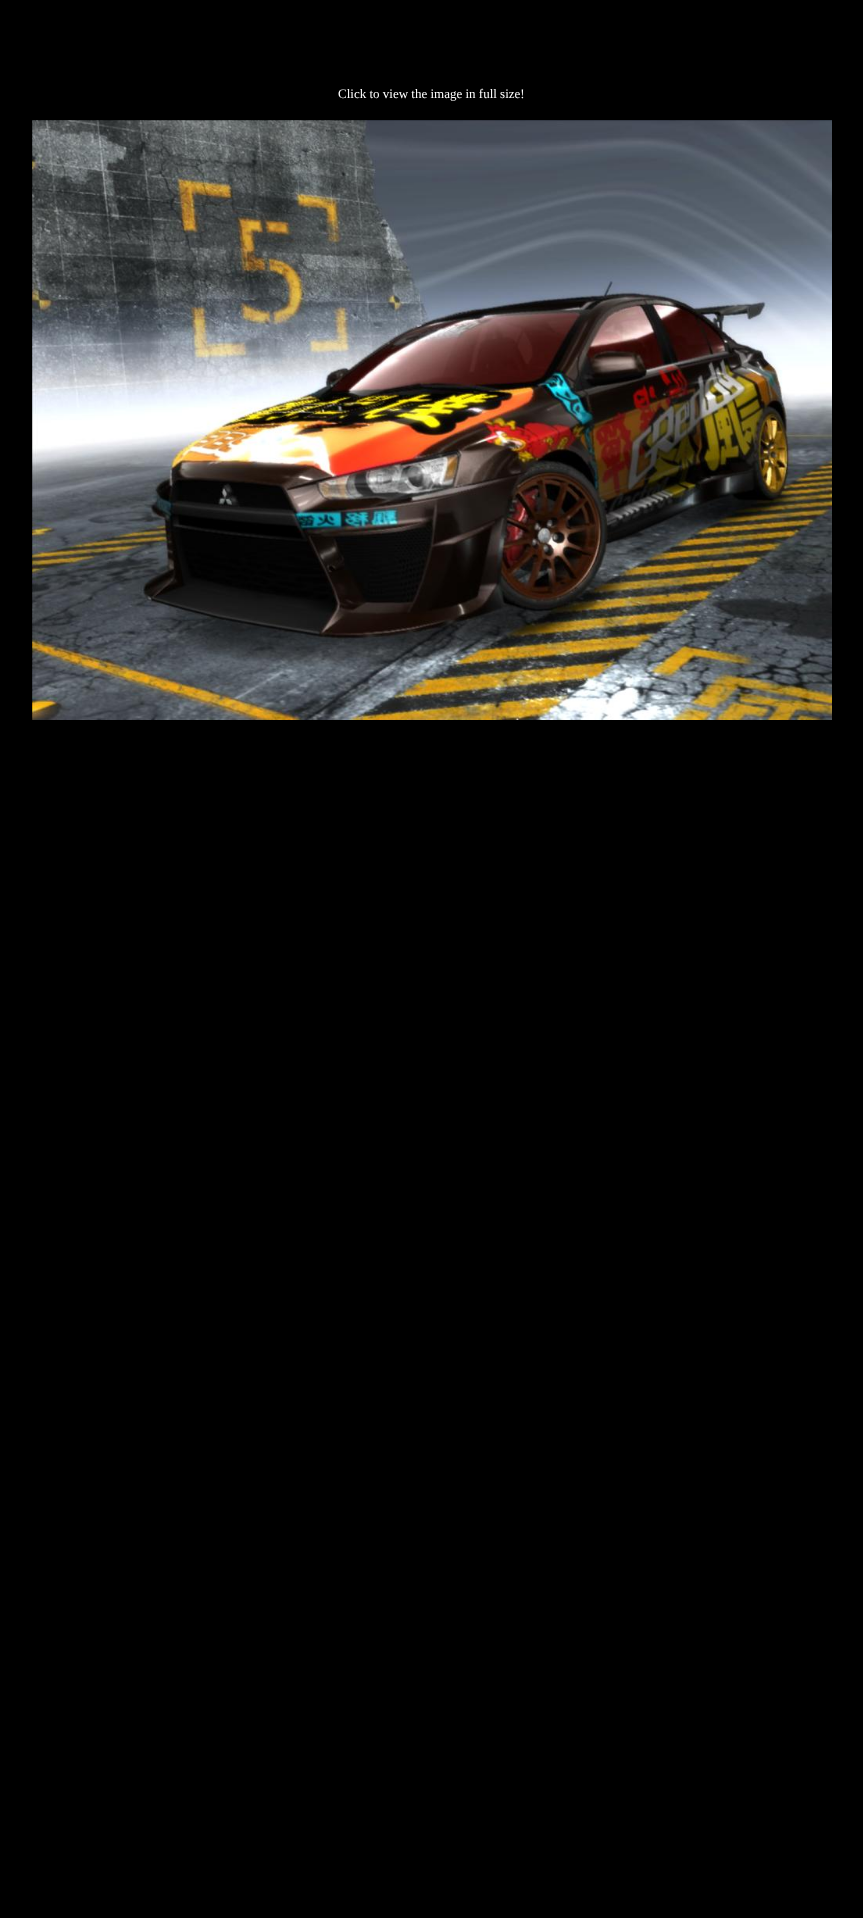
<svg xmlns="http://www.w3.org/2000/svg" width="863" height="1918">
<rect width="100%" height="100%" fill="#000"/>
<text x="338" y="98" style="font-family:Liberation Serif;font-size:13px;fill:#fff">Click to view the image in full size!</text>
<image x="32" y="120" width="800" height="600" href="media/1.png"/>
</svg>
